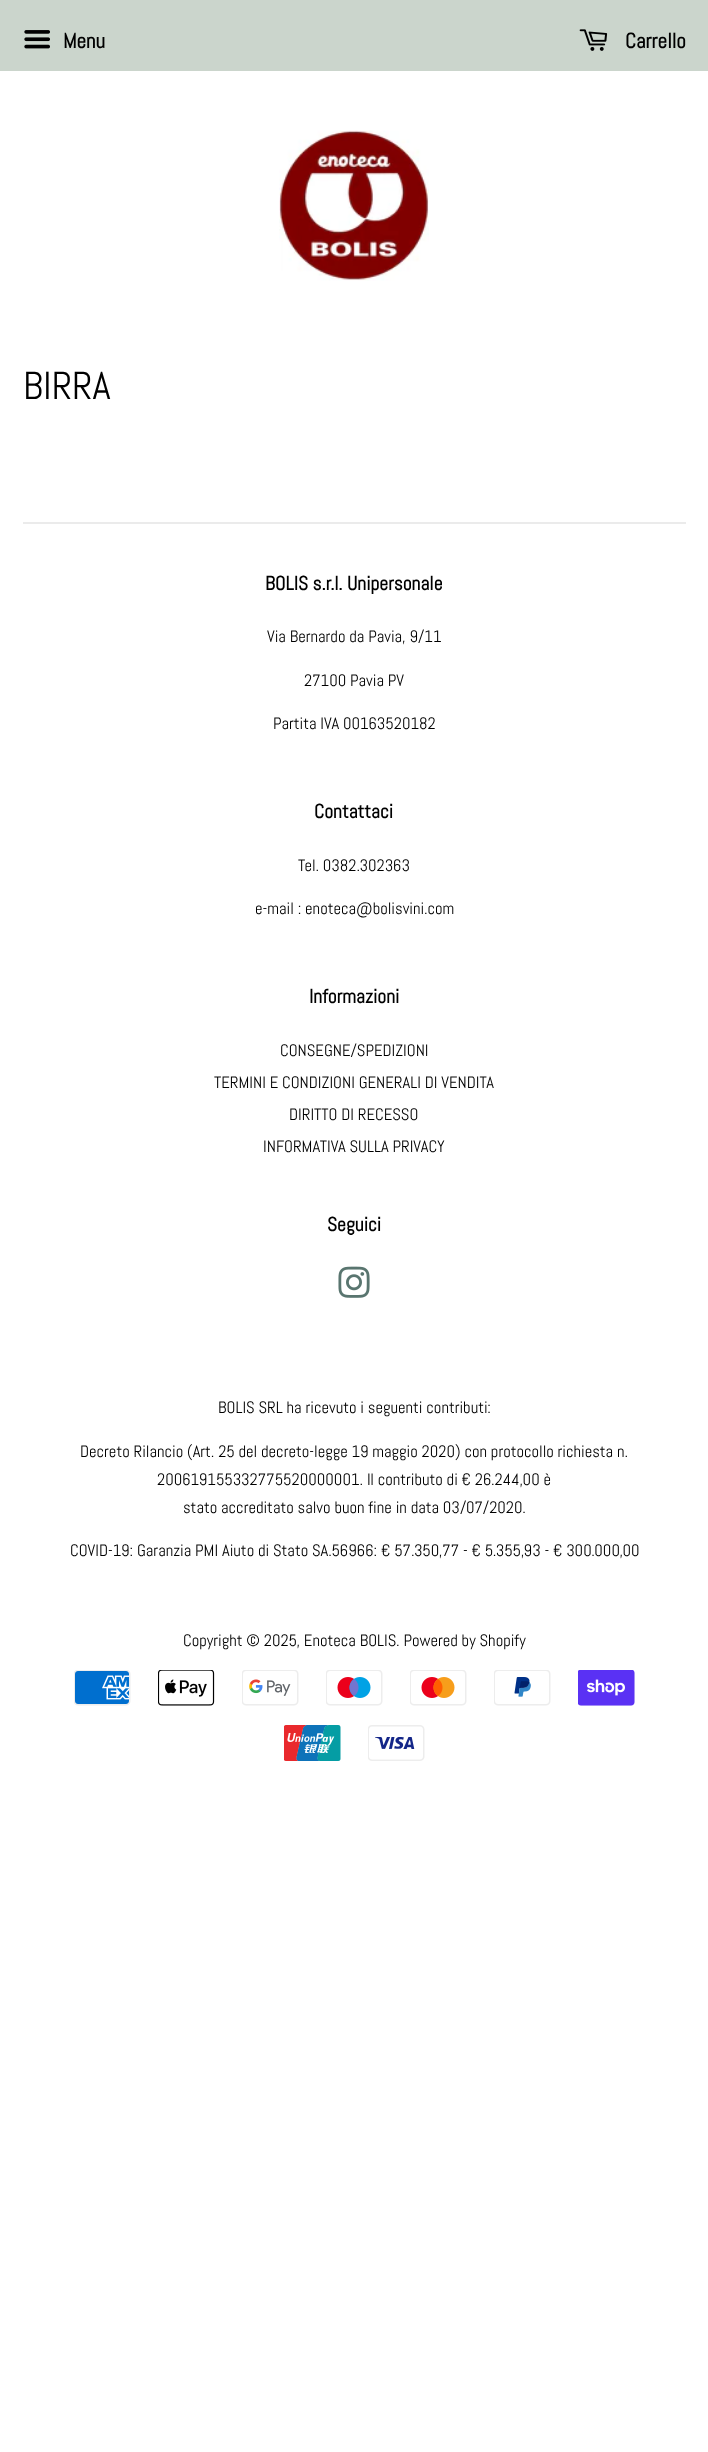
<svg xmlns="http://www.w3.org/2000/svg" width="708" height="2452">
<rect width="100%" height="100%" fill="#fff"/>
<rect width="708" height="71" fill="#cbd5cc"/>
<image x="24" y="30" width="26" height="19" href="media/1.png"/>
<text x="63" y="48" style="font-family:Abel;font-size:21px;font-weight:bold;fill:#000">Menu</text>
<image x="579" y="29" width="29" height="22" href="media/2.png"/>
<text x="625" y="48" style="font-family:Abel;font-size:21px;font-weight:bold;fill:#000">Carrello</text>
<image x="279" y="130" width="150" height="151" href="media/3.png"/>
<text x="23" y="399" style="font-family:Abel;font-size:39px;fill:#000">BIRRA</text>
<rect x="23" y="522" width="663" height="2" fill="#ebebeb"/>
<text x="265" y="590" style="font-family:Abel;font-size:19.5px;font-weight:bold;fill:#000">BOLIS s.r.l. Unipersonale</text>
<text x="267" y="642" style="font-family:Abel;font-size:16.6px;fill:#000">Via Bernardo da Pavia, 9/11</text>
<text x="304" y="686" style="font-family:Abel;font-size:16.6px;fill:#000">27100 Pavia PV</text>
<text x="273" y="729" style="font-family:Abel;font-size:16.6px;fill:#000">Partita IVA 00163520182</text>
<text x="314" y="818" style="font-family:Abel;font-size:19.5px;font-weight:bold;fill:#000">Contattaci</text>
<text x="298" y="871" style="font-family:Abel;font-size:16.6px;fill:#000">Tel. 0382.302363</text>
<text x="255" y="914" style="font-family:Abel;font-size:16.6px;fill:#000">e-mail : enoteca@bolisvini.com</text>
<text x="309" y="1003" style="font-family:Abel;font-size:19.5px;font-weight:bold;fill:#000">Informazioni</text>
<text x="280" y="1056" style="font-family:Abel;font-size:16.6px;fill:#000">CONSEGNE/SPEDIZIONI</text>
<text x="214" y="1088" style="font-family:Abel;font-size:16.6px;fill:#000">TERMINI E CONDIZIONI GENERALI DI VENDITA</text>
<text x="289" y="1120" style="font-family:Abel;font-size:16.6px;fill:#000">DIRITTO DI RECESSO</text>
<text x="263" y="1152" style="font-family:Abel;font-size:16.6px;fill:#000">INFORMATIVA SULLA PRIVACY</text>
<text x="327" y="1231" style="font-family:Abel;font-size:19.5px;font-weight:bold;fill:#000">Seguici</text>
<image x="338" y="1266" width="32" height="32" href="media/4.png"/>
<text x="218" y="1413" style="font-family:Abel;font-size:16.6px;fill:#000">BOLIS SRL ha ricevuto i seguenti contributi:</text>
<text x="80" y="1457" style="font-family:Abel;font-size:16.6px;fill:#000">Decreto Rilancio (Art. 25 del decreto-legge 19 maggio 2020) con protocollo richiesta n.</text>
<text x="157" y="1485" style="font-family:Abel;font-size:16.6px;fill:#000">200619155332775520000001. Il contributo di € 26.244,00 è</text>
<text x="183" y="1513" style="font-family:Abel;font-size:16.6px;fill:#000">stato accreditato salvo buon fine in data 03/07/2020.</text>
<text x="70" y="1556" style="font-family:Abel;font-size:16.6px;fill:#000">COVID-19: Garanzia PMI Aiuto di Stato SA.56966: € 57.350,77 - € 5.355,93 - € 300.000,00</text>
<text x="183" y="1646" style="font-family:Abel;font-size:16.6px;fill:#000">Copyright © 2025, Enoteca BOLIS. Powered by Shopify</text>
<image x="74" y="1670" width="57" height="36" href="media/5.png"/>
<image x="158" y="1670" width="57" height="36" href="media/6.png"/>
<image x="242" y="1670" width="57" height="36" href="media/7.png"/>
<image x="326" y="1670" width="57" height="36" href="media/8.png"/>
<image x="410" y="1670" width="57" height="36" href="media/9.png"/>
<image x="494" y="1670" width="57" height="36" href="media/10.png"/>
<image x="578" y="1670" width="57" height="36" href="media/11.png"/>
<image x="284" y="1725" width="57" height="36" href="media/12.png"/>
<image x="368" y="1725" width="57" height="36" href="media/13.png"/>
</svg>
